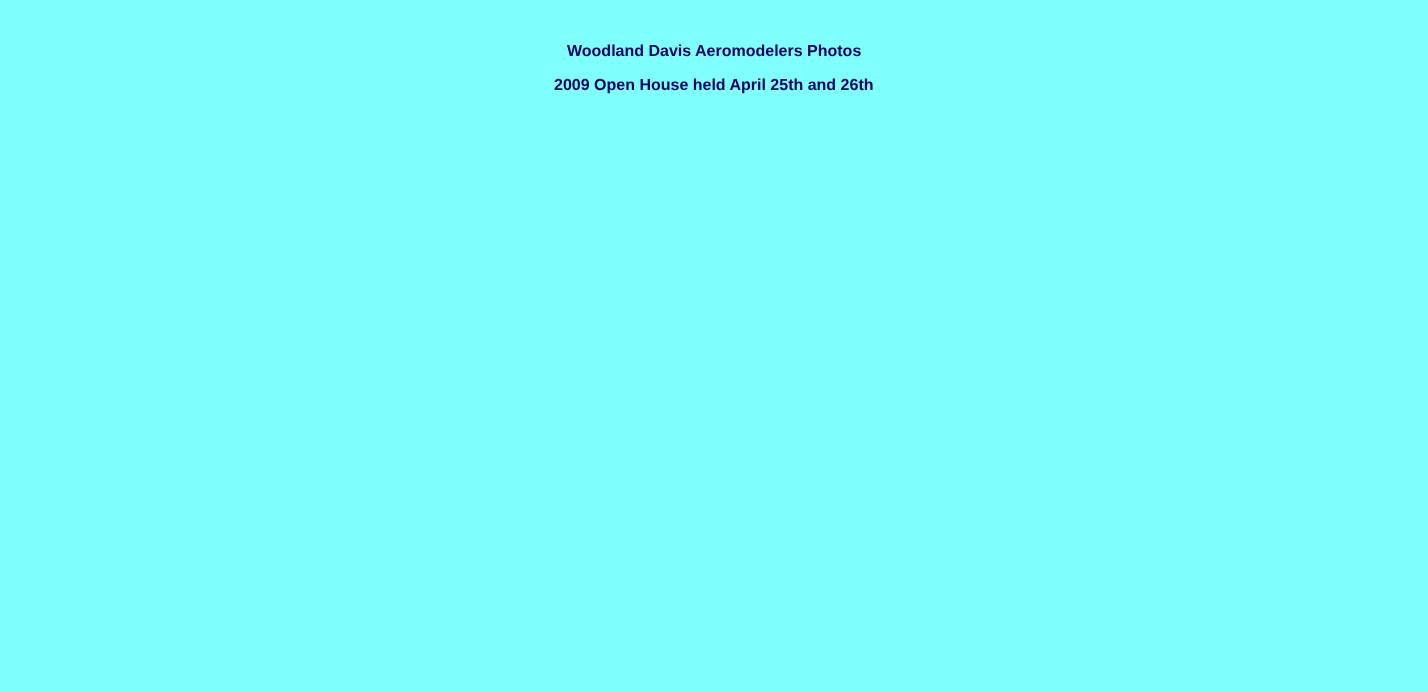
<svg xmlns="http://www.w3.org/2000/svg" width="1428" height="692">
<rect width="100%" height="100%" fill="#80ffff"/>
<text x="567" y="56" style="font-family:Liberation Sans;font-size:16px;font-weight:bold;fill:#006">Woodland Davis Aeromodelers Photos</text>
<text x="554" y="90" style="font-family:Liberation Sans;font-size:16px;font-weight:bold;fill:#006">2009 Open House held April 25th and 26th</text>
</svg>
